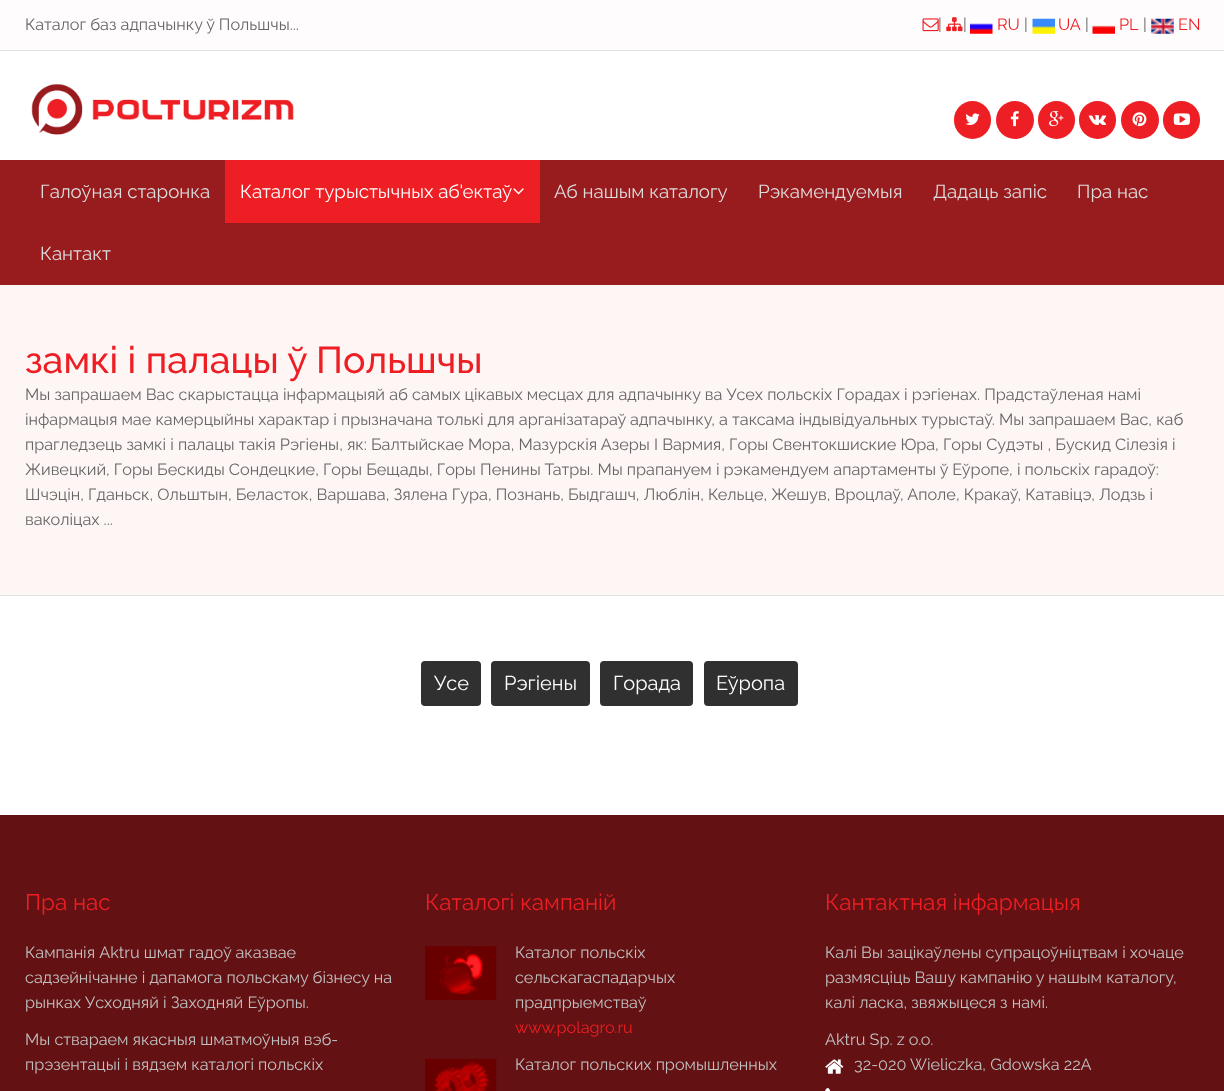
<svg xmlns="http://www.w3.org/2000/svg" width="1224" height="1091">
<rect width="100%" height="100%" fill="#fff"/>
<rect width="1224" height="50" fill="#fefcfc"/>
<rect y="50" width="1224" height="1" fill="#e0e0e0"/>
<text x="25" y="30" style="font-family:Raleway;font-size:16.25px;fill:#666">Каталог баз адпачынку ў Польшчы...</text>
<image x="922" y="18" width="17" height="14" href="media/1.png"/>
<text x="938" y="30" style="font-family:Raleway;font-size:16.25px;fill:#666">|</text>
<image x="946" y="17" width="17" height="15" href="media/2.png"/>
<text x="963" y="30" style="font-family:Raleway;font-size:16.25px;fill:#666">|</text>
<image x="970" y="23" width="23" height="11" href="media/3.png"/>
<text x="997" y="30" style="font-family:Raleway;font-size:16.25px;fill:#ed1f24">RU</text>
<text x="1024" y="30" style="font-family:Raleway;font-size:16.25px;fill:#666">|</text>
<image x="1032" y="18" width="23" height="16" href="media/4.png"/>
<text x="1058" y="30" style="font-family:Raleway;font-size:16.25px;fill:#ed1f24">UA</text>
<text x="1085" y="30" style="font-family:Raleway;font-size:16.25px;fill:#666">|</text>
<image x="1092" y="25" width="23" height="9" href="media/5.png"/>
<text x="1119" y="30" style="font-family:Raleway;font-size:16.25px;fill:#ed1f24">PL</text>
<text x="1143" y="30" style="font-family:Raleway;font-size:16.25px;fill:#666">|</text>
<image x="1151" y="18" width="23" height="16" href="media/6.png"/>
<text x="1178" y="30" style="font-family:Raleway;font-size:16.25px;fill:#ed1f24">EN</text>
<image x="31" y="83" width="263" height="52" href="media/7.png"/>
<rect x="954" y="101" width="37" height="38" rx="18.5" fill="#ed1f24"/>
<image x="965" y="113" width="15" height="12" href="media/8.png"/>
<circle cx="1015" cy="120" r="19" fill="#ed1f24"/>
<image x="1010" y="111" width="9" height="16" href="media/9.png"/>
<rect x="1038" y="101" width="37" height="38" rx="18.5" fill="#ed1f24"/>
<image x="1049" y="111" width="15" height="16" href="media/10.png"/>
<rect x="1079" y="101" width="37" height="38" rx="18.5" fill="#ed1f24"/>
<image x="1088" y="115" width="19" height="10" href="media/11.png"/>
<circle cx="1140" cy="120" r="19" fill="#ed1f24"/>
<image x="1132" y="112" width="15" height="15" href="media/12.png"/>
<rect x="1163" y="101" width="37" height="38" rx="18.5" fill="#ed1f24"/>
<image x="1173" y="113" width="17" height="12" href="media/13.png"/>
<rect y="160" width="1224" height="125" fill="#981b1e"/>
<text x="40" y="198" style="font-family:Raleway;font-size:18.75px;fill:#ddd">Галоўная старонка</text>
<rect x="225" y="160" width="315" height="63" fill="#ed1f24"/>
<text x="240" y="198" style="font-family:Raleway;font-size:18.75px;fill:#fff">Каталог турыстычных аб'ектаў</text>
<image x="513" y="188" width="11" height="7" href="media/14.png"/>
<text x="554" y="198" style="font-family:Raleway;font-size:18.75px;fill:#ddd">Аб нашым каталогу</text>
<text x="758" y="198" style="font-family:Raleway;font-size:18.75px;fill:#ddd">Рэкамендуемыя</text>
<text x="933" y="198" style="font-family:Raleway;font-size:18.75px;fill:#ddd">Дадаць запіс</text>
<text x="1077" y="198" style="font-family:Raleway;font-size:18.75px;fill:#ddd">Пра нас</text>
<text x="40" y="260" style="font-family:Raleway;font-size:18.75px;fill:#ddd">Кантакт</text>
<rect y="285" width="1224" height="310" fill="#fef5f5"/>
<rect y="595" width="1224" height="1" fill="#e0e0e0"/>
<text x="25" y="373" style="font-family:Raleway;font-size:37.5px;font-weight:500;fill:#ed1f24">замкі і палацы ў Польшчы</text>
<text x="25" y="400" style="font-family:Raleway;font-size:16.25px;fill:#666">Мы запрашаем Вас скарыстацца інфармацыяй аб самых цікавых месцах для адпачынку ва Усех польскіх Горадах і рэгіенах. Прадстаўленая намі</text>
<text x="25" y="425" style="font-family:Raleway;font-size:16.25px;fill:#666">інфармацыя мае камерцыйны характар і прызначана толькі для арганізатараў адпачынку, а таксама індывідуальных турыстаў. Мы запрашаем Вас, каб</text>
<text x="25" y="450" style="font-family:Raleway;font-size:16.25px;fill:#666">прагледзець замкі і палацы такія Рэгіены, як: Балтыйскае Мора, Мазурскія Азеры І Вармия, Горы Свентокшиские Юра, Горы Судэты , Бускид Сілезія і</text>
<text x="25" y="475" style="font-family:Raleway;font-size:16.25px;fill:#666">Живецкий, Горы Бескиды Сондецкие, Горы Бещады, Горы Пенины Татры. Мы прапануем і рэкамендуем апартаменты ў Еўропе, і польскіх гарадоў:</text>
<text x="25" y="500" style="font-family:Raleway;font-size:16.25px;fill:#666">Шчэцін, Гданьск, Ольштын, Беласток, Варшава, Зялена Гура, Познань, Быдгашч, Люблін, Кельце, Жешув, Вроцлаў, Аполе, Кракаў, Катавіцэ, Лодзь і</text>
<text x="25" y="525" style="font-family:Raleway;font-size:16.25px;fill:#666">ваколіцах ...</text>
<rect x="421" y="661" width="60" height="45" rx="4" fill="#303030"/>
<text x="434" y="690" style="font-family:Raleway;font-size:20px;fill:#fff">Усе</text>
<rect x="491" y="661" width="99" height="45" rx="4" fill="#303030"/>
<text x="504" y="690" style="font-family:Raleway;font-size:20px;fill:#fff">Рэгіены</text>
<rect x="600" y="661" width="93" height="45" rx="4" fill="#303030"/>
<text x="613" y="690" style="font-family:Raleway;font-size:20px;fill:#fff">Горада</text>
<rect x="704" y="661" width="94" height="45" rx="4" fill="#303030"/>
<text x="716" y="690" style="font-family:Raleway;font-size:20px;fill:#fff">Еўропа</text>
<rect y="815" width="1224" height="276" fill="#641113"/>
<text x="25" y="910" style="font-family:Raleway;font-size:22.5px;fill:#ed1f24">Пра нас</text>
<text x="25" y="958" style="font-family:Raleway;font-size:16.25px;fill:#c0c0c0">Кампанія Aktru шмат гадоў аказвае</text>
<text x="25" y="983" style="font-family:Raleway;font-size:16.25px;fill:#c0c0c0">садзейнічанне і дапамога польскаму бізнесу на</text>
<text x="25" y="1008" style="font-family:Raleway;font-size:16.25px;fill:#c0c0c0">рынках Усходняй і Заходняй Еўропы.</text>
<text x="25" y="1045" style="font-family:Raleway;font-size:16.25px;fill:#c0c0c0">Мы ствараем якасныя шматмоўныя вэб-</text>
<text x="25" y="1070" style="font-family:Raleway;font-size:16.25px;fill:#c0c0c0">прэзентацыі і вядзем каталогі польскіх</text>
<text x="425" y="910" style="font-family:Raleway;font-size:22.5px;fill:#ed1f24">Каталогі кампаній</text>
<image x="425" y="946" width="72" height="54" href="media/15.png"/>
<text x="515" y="958" style="font-family:Raleway;font-size:16.25px;fill:#c0c0c0">Каталог польскіх</text>
<text x="515" y="983" style="font-family:Raleway;font-size:16.25px;fill:#c0c0c0">сельскагаспадарчых</text>
<text x="515" y="1008" style="font-family:Raleway;font-size:16.25px;fill:#c0c0c0">прадпрыемстваў</text>
<text x="515" y="1033" style="font-family:Raleway;font-size:16.25px;fill:#ed1f24">www.polagro.ru</text>
<image x="425" y="1058" width="72" height="33" href="media/16.png"/>
<text x="515" y="1070" style="font-family:Raleway;font-size:16.25px;fill:#c0c0c0">Каталог польских промышленных</text>
<text x="825" y="910" style="font-family:Raleway;font-size:22.5px;fill:#ed1f24">Кантактная інфармацыя</text>
<text x="825" y="958" style="font-family:Raleway;font-size:16.25px;fill:#c0c0c0">Калі Вы зацікаўлены супрацоўніцтвам і хочаце</text>
<text x="825" y="983" style="font-family:Raleway;font-size:16.25px;fill:#c0c0c0">размясціць Вашу кампанію у нашым каталогу,</text>
<text x="825" y="1008" style="font-family:Raleway;font-size:16.25px;fill:#c0c0c0">калі ласка, звяжыцеся з намі.</text>
<text x="825" y="1045" style="font-family:Raleway;font-size:16.25px;fill:#c0c0c0">Aktru Sp. z o.o.</text>
<image x="825" y="1059" width="19" height="15" href="media/17.png"/>
<text x="854" y="1070" style="font-family:Raleway;font-size:16.25px;fill:#c0c0c0">32-020 Wieliczka, Gdowska 22A</text>
<image x="825" y="1088" width="6" height="3" href="media/18.png"/>
</svg>
